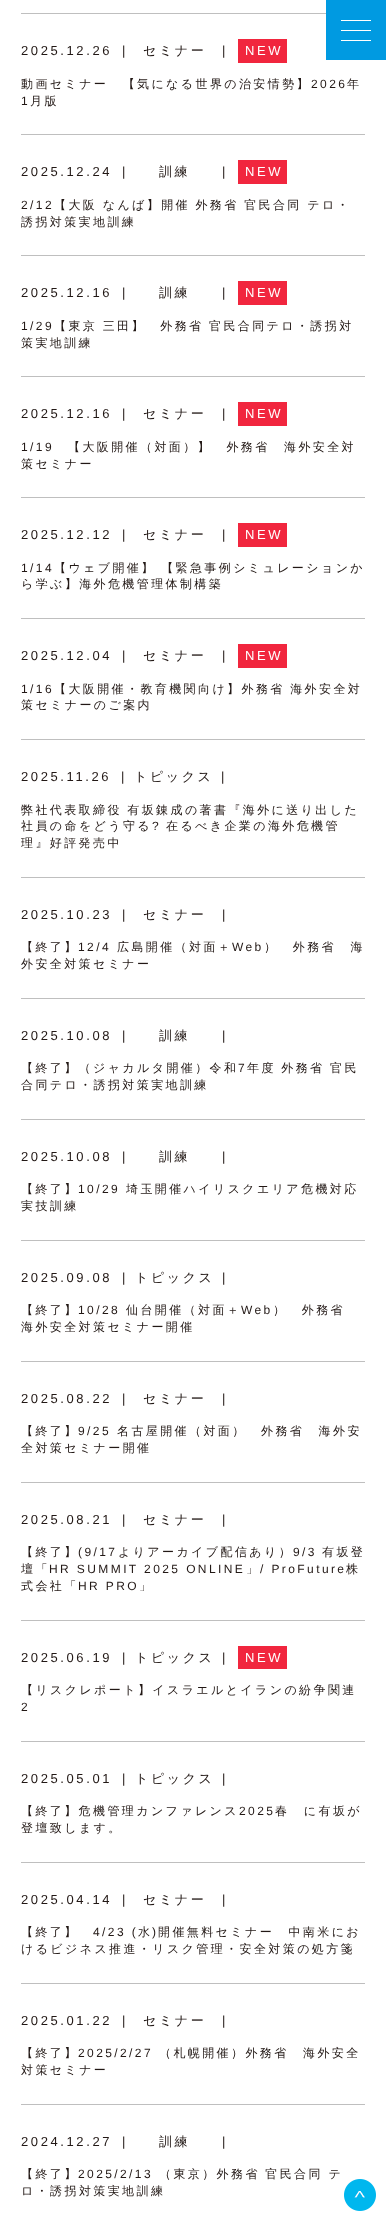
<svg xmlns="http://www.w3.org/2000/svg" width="386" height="2219">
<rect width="100%" height="100%" fill="#fff"/>
<rect x="326" width="60" height="60" fill="#009ae1"/>
<rect x="341" y="20" width="30" height="1" fill="#fff"/>
<rect x="341" y="30" width="30" height="1" fill="#fff"/>
<rect x="341" y="40" width="30" height="1" fill="#fff"/>
<rect x="21" y="13" width="305" height="1" fill="#bfbfbf"/>
<rect x="21" y="134" width="344" height="1" fill="#bfbfbf"/>
<text x="21" y="55" style="font-family:Liberation Sans;font-size:13px;letter-spacing:2.6px;fill:#221815">2025.12.26</text>
<text x="122" y="55" style="font-family:Liberation Sans;font-size:13px;letter-spacing:2.6px;fill:#221815">|</text>
<text x="143" y="55" style="font-family:WenQuanYi Zen Hei;font-size:13px;font-weight:500;letter-spacing:2.6px;fill:#221815">セミナー</text>
<text x="222" y="55" style="font-family:Liberation Sans;font-size:13px;letter-spacing:2.6px;fill:#221815">|</text>
<rect x="238" y="39" width="49" height="24" fill="#f1263e"/>
<text x="245" y="55" style="font-family:Liberation Sans;font-size:13px;letter-spacing:2.6px;fill:#fff">NEW</text>
<text x="21" y="88" style="font-family:WenQuanYi Zen Hei;font-size:12px;font-weight:500;letter-spacing:2.4px;fill:#221815">動画セミナー　【気になる世界の治安情勢】</text>
<text x="311" y="88" style="font-family:Liberation Sans;font-size:12px;letter-spacing:2.4px;fill:#221815">2026</text>
<text x="347" y="88" style="font-family:WenQuanYi Zen Hei;font-size:12px;font-weight:500;letter-spacing:2.4px;fill:#221815">年</text>
<text x="21" y="105" style="font-family:Liberation Sans;font-size:12px;letter-spacing:2.4px;fill:#221815">1</text>
<text x="30" y="105" style="font-family:WenQuanYi Zen Hei;font-size:12px;font-weight:500;letter-spacing:2.4px;fill:#221815">月版</text>
<rect x="21" y="255" width="344" height="1" fill="#bfbfbf"/>
<text x="21" y="176" style="font-family:Liberation Sans;font-size:13px;letter-spacing:2.6px;fill:#221815">2025.12.24</text>
<text x="122" y="176" style="font-family:Liberation Sans;font-size:13px;letter-spacing:2.6px;fill:#221815">|</text>
<text x="159" y="176" style="font-family:WenQuanYi Zen Hei;font-size:13px;font-weight:500;letter-spacing:2.6px;fill:#221815">訓練</text>
<text x="222" y="176" style="font-family:Liberation Sans;font-size:13px;letter-spacing:2.6px;fill:#221815">|</text>
<rect x="238" y="160" width="49" height="24" fill="#f1263e"/>
<text x="245" y="176" style="font-family:Liberation Sans;font-size:13px;letter-spacing:2.6px;fill:#fff">NEW</text>
<text x="21" y="209" style="font-family:Liberation Sans;font-size:12px;letter-spacing:2.4px;fill:#221815">2/12</text>
<text x="54" y="209" word-spacing="-0.5" style="font-family:WenQuanYi Zen Hei;font-size:12px;font-weight:500;letter-spacing:2.4px;fill:#221815">【大阪 なんば】開催 外務省 官民合同 テロ・</text>
<text x="21" y="226" style="font-family:WenQuanYi Zen Hei;font-size:12px;font-weight:500;letter-spacing:2.4px;fill:#221815">誘拐対策実地訓練</text>
<rect x="21" y="376" width="344" height="1" fill="#bfbfbf"/>
<text x="21" y="297" style="font-family:Liberation Sans;font-size:13px;letter-spacing:2.6px;fill:#221815">2025.12.16</text>
<text x="122" y="297" style="font-family:Liberation Sans;font-size:13px;letter-spacing:2.6px;fill:#221815">|</text>
<text x="159" y="297" style="font-family:WenQuanYi Zen Hei;font-size:13px;font-weight:500;letter-spacing:2.6px;fill:#221815">訓練</text>
<text x="222" y="297" style="font-family:Liberation Sans;font-size:13px;letter-spacing:2.6px;fill:#221815">|</text>
<rect x="238" y="281" width="49" height="24" fill="#f1263e"/>
<text x="245" y="297" style="font-family:Liberation Sans;font-size:13px;letter-spacing:2.6px;fill:#fff">NEW</text>
<text x="21" y="330" style="font-family:Liberation Sans;font-size:12px;letter-spacing:2.4px;fill:#221815">1/29</text>
<text x="54" y="330" word-spacing="-0.5" style="font-family:WenQuanYi Zen Hei;font-size:12px;font-weight:500;letter-spacing:2.4px;fill:#221815">【東京 三田】　外務省 官民合同テロ・誘拐対</text>
<text x="21" y="347" style="font-family:WenQuanYi Zen Hei;font-size:12px;font-weight:500;letter-spacing:2.4px;fill:#221815">策実地訓練</text>
<rect x="21" y="497" width="344" height="1" fill="#bfbfbf"/>
<text x="21" y="418" style="font-family:Liberation Sans;font-size:13px;letter-spacing:2.6px;fill:#221815">2025.12.16</text>
<text x="122" y="418" style="font-family:Liberation Sans;font-size:13px;letter-spacing:2.6px;fill:#221815">|</text>
<text x="143" y="418" style="font-family:WenQuanYi Zen Hei;font-size:13px;font-weight:500;letter-spacing:2.6px;fill:#221815">セミナー</text>
<text x="222" y="418" style="font-family:Liberation Sans;font-size:13px;letter-spacing:2.6px;fill:#221815">|</text>
<rect x="238" y="402" width="49" height="24" fill="#f1263e"/>
<text x="245" y="418" style="font-family:Liberation Sans;font-size:13px;letter-spacing:2.6px;fill:#fff">NEW</text>
<text x="21" y="451" style="font-family:Liberation Sans;font-size:12px;letter-spacing:2.4px;fill:#221815">1/19</text>
<text x="68" y="451" style="font-family:WenQuanYi Zen Hei;font-size:12px;font-weight:500;letter-spacing:2.4px;fill:#221815">【大阪開催（対面）】　外務省　海外安全対</text>
<text x="21" y="468" style="font-family:WenQuanYi Zen Hei;font-size:12px;font-weight:500;letter-spacing:2.4px;fill:#221815">策セミナー</text>
<rect x="21" y="618" width="344" height="1" fill="#bfbfbf"/>
<text x="21" y="539" style="font-family:Liberation Sans;font-size:13px;letter-spacing:2.6px;fill:#221815">2025.12.12</text>
<text x="122" y="539" style="font-family:Liberation Sans;font-size:13px;letter-spacing:2.6px;fill:#221815">|</text>
<text x="143" y="539" style="font-family:WenQuanYi Zen Hei;font-size:13px;font-weight:500;letter-spacing:2.6px;fill:#221815">セミナー</text>
<text x="222" y="539" style="font-family:Liberation Sans;font-size:13px;letter-spacing:2.6px;fill:#221815">|</text>
<rect x="238" y="523" width="49" height="24" fill="#f1263e"/>
<text x="245" y="539" style="font-family:Liberation Sans;font-size:13px;letter-spacing:2.6px;fill:#fff">NEW</text>
<text x="21" y="572" style="font-family:Liberation Sans;font-size:12px;letter-spacing:2.4px;fill:#221815">1/14</text>
<text x="54" y="572" word-spacing="-0.5" style="font-family:WenQuanYi Zen Hei;font-size:12px;font-weight:500;letter-spacing:2.4px;fill:#221815">【ウェブ開催】 【緊急事例シミュレーションか</text>
<text x="21" y="588" style="font-family:WenQuanYi Zen Hei;font-size:12px;font-weight:500;letter-spacing:2.4px;fill:#221815">ら学ぶ】海外危機管理体制構築</text>
<rect x="21" y="739" width="344" height="1" fill="#bfbfbf"/>
<text x="21" y="660" style="font-family:Liberation Sans;font-size:13px;letter-spacing:2.6px;fill:#221815">2025.12.04</text>
<text x="122" y="660" style="font-family:Liberation Sans;font-size:13px;letter-spacing:2.6px;fill:#221815">|</text>
<text x="143" y="660" style="font-family:WenQuanYi Zen Hei;font-size:13px;font-weight:500;letter-spacing:2.6px;fill:#221815">セミナー</text>
<text x="222" y="660" style="font-family:Liberation Sans;font-size:13px;letter-spacing:2.6px;fill:#221815">|</text>
<rect x="238" y="644" width="49" height="24" fill="#f1263e"/>
<text x="245" y="660" style="font-family:Liberation Sans;font-size:13px;letter-spacing:2.6px;fill:#fff">NEW</text>
<text x="21" y="693" style="font-family:Liberation Sans;font-size:12px;letter-spacing:2.4px;fill:#221815">1/16</text>
<text x="54" y="693" word-spacing="-0.5" style="font-family:WenQuanYi Zen Hei;font-size:12px;font-weight:500;letter-spacing:2.4px;fill:#221815">【大阪開催・教育機関向け】外務省 海外安全対</text>
<text x="21" y="709" style="font-family:WenQuanYi Zen Hei;font-size:12px;font-weight:500;letter-spacing:2.4px;fill:#221815">策セミナーのご案内</text>
<rect x="21" y="877" width="344" height="1" fill="#bfbfbf"/>
<text x="21" y="781" style="font-family:Liberation Sans;font-size:13px;letter-spacing:2.6px;fill:#221815">2025.11.26</text>
<text x="121" y="781" style="font-family:Liberation Sans;font-size:13px;letter-spacing:2.6px;fill:#221815">|</text>
<text x="134" y="781" style="font-family:WenQuanYi Zen Hei;font-size:13px;font-weight:500;letter-spacing:2.6px;fill:#221815">トピックス</text>
<text x="221" y="781" style="font-family:Liberation Sans;font-size:13px;letter-spacing:2.6px;fill:#221815">|</text>
<text x="21" y="814" word-spacing="-0.5" style="font-family:WenQuanYi Zen Hei;font-size:12px;font-weight:500;letter-spacing:2.4px;fill:#221815">弊社代表取締役 有坂錬成の著書『海外に送り出した</text>
<text x="21" y="830" style="font-family:WenQuanYi Zen Hei;font-size:12px;font-weight:500;letter-spacing:2.4px;fill:#221815">社員の命をどう守る</text>
<text x="152" y="830" style="font-family:Liberation Sans;font-size:12px;letter-spacing:2.4px;fill:#221815">?</text>
<text x="166" y="830" style="font-family:WenQuanYi Zen Hei;font-size:12px;font-weight:500;letter-spacing:2.4px;fill:#221815">在るべき企業の海外危機管</text>
<text x="21" y="847" style="font-family:WenQuanYi Zen Hei;font-size:12px;font-weight:500;letter-spacing:2.4px;fill:#221815">理』好評発売中</text>
<rect x="21" y="998" width="344" height="1" fill="#bfbfbf"/>
<text x="21" y="919" style="font-family:Liberation Sans;font-size:13px;letter-spacing:2.6px;fill:#221815">2025.10.23</text>
<text x="122" y="919" style="font-family:Liberation Sans;font-size:13px;letter-spacing:2.6px;fill:#221815">|</text>
<text x="143" y="919" style="font-family:WenQuanYi Zen Hei;font-size:13px;font-weight:500;letter-spacing:2.6px;fill:#221815">セミナー</text>
<text x="222" y="919" style="font-family:Liberation Sans;font-size:13px;letter-spacing:2.6px;fill:#221815">|</text>
<text x="21" y="951" style="font-family:WenQuanYi Zen Hei;font-size:12px;font-weight:500;letter-spacing:2.4px;fill:#221815">【終了】</text>
<text x="78" y="951" style="font-family:Liberation Sans;font-size:12px;letter-spacing:2.4px;fill:#221815">12/4</text>
<text x="117" y="951" style="font-family:WenQuanYi Zen Hei;font-size:12px;font-weight:500;letter-spacing:2.4px;fill:#221815">広島開催（対面＋</text>
<text x="232" y="951" style="font-family:Liberation Sans;font-size:12px;letter-spacing:2.4px;fill:#221815">Web</text>
<text x="264" y="951" style="font-family:WenQuanYi Zen Hei;font-size:12px;font-weight:500;letter-spacing:2.4px;fill:#221815">）　外務省　海</text>
<text x="21" y="968" style="font-family:WenQuanYi Zen Hei;font-size:12px;font-weight:500;letter-spacing:2.4px;fill:#221815">外安全対策セミナー</text>
<rect x="21" y="1119" width="344" height="1" fill="#bfbfbf"/>
<text x="21" y="1040" style="font-family:Liberation Sans;font-size:13px;letter-spacing:2.6px;fill:#221815">2025.10.08</text>
<text x="122" y="1040" style="font-family:Liberation Sans;font-size:13px;letter-spacing:2.6px;fill:#221815">|</text>
<text x="159" y="1040" style="font-family:WenQuanYi Zen Hei;font-size:13px;font-weight:500;letter-spacing:2.6px;fill:#221815">訓練</text>
<text x="222" y="1040" style="font-family:Liberation Sans;font-size:13px;letter-spacing:2.6px;fill:#221815">|</text>
<text x="21" y="1072" style="font-family:WenQuanYi Zen Hei;font-size:12px;font-weight:500;letter-spacing:2.4px;fill:#221815">【終了】（ジャカルタ開催）令和</text>
<text x="238" y="1072" style="font-family:Liberation Sans;font-size:12px;letter-spacing:2.4px;fill:#221815">7</text>
<text x="247" y="1072" word-spacing="-0.5" style="font-family:WenQuanYi Zen Hei;font-size:12px;font-weight:500;letter-spacing:2.4px;fill:#221815">年度 外務省 官民</text>
<text x="21" y="1089" style="font-family:WenQuanYi Zen Hei;font-size:12px;font-weight:500;letter-spacing:2.4px;fill:#221815">合同テロ・誘拐対策実地訓練</text>
<rect x="21" y="1240" width="344" height="1" fill="#bfbfbf"/>
<text x="21" y="1161" style="font-family:Liberation Sans;font-size:13px;letter-spacing:2.6px;fill:#221815">2025.10.08</text>
<text x="122" y="1161" style="font-family:Liberation Sans;font-size:13px;letter-spacing:2.6px;fill:#221815">|</text>
<text x="159" y="1161" style="font-family:WenQuanYi Zen Hei;font-size:13px;font-weight:500;letter-spacing:2.6px;fill:#221815">訓練</text>
<text x="222" y="1161" style="font-family:Liberation Sans;font-size:13px;letter-spacing:2.6px;fill:#221815">|</text>
<text x="21" y="1193" style="font-family:WenQuanYi Zen Hei;font-size:12px;font-weight:500;letter-spacing:2.4px;fill:#221815">【終了】</text>
<text x="78" y="1193" style="font-family:Liberation Sans;font-size:12px;letter-spacing:2.4px;fill:#221815">10/29</text>
<text x="126" y="1193" style="font-family:WenQuanYi Zen Hei;font-size:12px;font-weight:500;letter-spacing:2.4px;fill:#221815">埼玉開催ハイリスクエリア危機対応</text>
<text x="21" y="1210" style="font-family:WenQuanYi Zen Hei;font-size:12px;font-weight:500;letter-spacing:2.4px;fill:#221815">実技訓練</text>
<rect x="21" y="1361" width="344" height="1" fill="#bfbfbf"/>
<text x="21" y="1282" style="font-family:Liberation Sans;font-size:13px;letter-spacing:2.6px;fill:#221815">2025.09.08</text>
<text x="122" y="1282" style="font-family:Liberation Sans;font-size:13px;letter-spacing:2.6px;fill:#221815">|</text>
<text x="135" y="1282" style="font-family:WenQuanYi Zen Hei;font-size:13px;font-weight:500;letter-spacing:2.6px;fill:#221815">トピックス</text>
<text x="222" y="1282" style="font-family:Liberation Sans;font-size:13px;letter-spacing:2.6px;fill:#221815">|</text>
<text x="21" y="1314" style="font-family:WenQuanYi Zen Hei;font-size:12px;font-weight:500;letter-spacing:2.4px;fill:#221815">【終了】</text>
<text x="78" y="1314" style="font-family:Liberation Sans;font-size:12px;letter-spacing:2.4px;fill:#221815">10/28</text>
<text x="126" y="1314" style="font-family:WenQuanYi Zen Hei;font-size:12px;font-weight:500;letter-spacing:2.4px;fill:#221815">仙台開催（対面＋</text>
<text x="241" y="1314" style="font-family:Liberation Sans;font-size:12px;letter-spacing:2.4px;fill:#221815">Web</text>
<text x="273" y="1314" style="font-family:WenQuanYi Zen Hei;font-size:12px;font-weight:500;letter-spacing:2.4px;fill:#221815">）　外務省</text>
<text x="21" y="1331" style="font-family:WenQuanYi Zen Hei;font-size:12px;font-weight:500;letter-spacing:2.4px;fill:#221815">海外安全対策セミナー開催</text>
<rect x="21" y="1482" width="344" height="1" fill="#bfbfbf"/>
<text x="21" y="1403" style="font-family:Liberation Sans;font-size:13px;letter-spacing:2.6px;fill:#221815">2025.08.22</text>
<text x="122" y="1403" style="font-family:Liberation Sans;font-size:13px;letter-spacing:2.6px;fill:#221815">|</text>
<text x="143" y="1403" style="font-family:WenQuanYi Zen Hei;font-size:13px;font-weight:500;letter-spacing:2.6px;fill:#221815">セミナー</text>
<text x="222" y="1403" style="font-family:Liberation Sans;font-size:13px;letter-spacing:2.6px;fill:#221815">|</text>
<text x="21" y="1435" style="font-family:WenQuanYi Zen Hei;font-size:12px;font-weight:500;letter-spacing:2.4px;fill:#221815">【終了】</text>
<text x="78" y="1435" style="font-family:Liberation Sans;font-size:12px;letter-spacing:2.4px;fill:#221815">9/25</text>
<text x="117" y="1435" style="font-family:WenQuanYi Zen Hei;font-size:12px;font-weight:500;letter-spacing:2.4px;fill:#221815">名古屋開催（対面）　外務省　海外安</text>
<text x="21" y="1452" style="font-family:WenQuanYi Zen Hei;font-size:12px;font-weight:500;letter-spacing:2.4px;fill:#221815">全対策セミナー開催</text>
<rect x="21" y="1620" width="344" height="1" fill="#bfbfbf"/>
<text x="21" y="1524" style="font-family:Liberation Sans;font-size:13px;letter-spacing:2.6px;fill:#221815">2025.08.21</text>
<text x="122" y="1524" style="font-family:Liberation Sans;font-size:13px;letter-spacing:2.6px;fill:#221815">|</text>
<text x="143" y="1524" style="font-family:WenQuanYi Zen Hei;font-size:13px;font-weight:500;letter-spacing:2.6px;fill:#221815">セミナー</text>
<text x="222" y="1524" style="font-family:Liberation Sans;font-size:13px;letter-spacing:2.6px;fill:#221815">|</text>
<text x="21" y="1556" style="font-family:WenQuanYi Zen Hei;font-size:12px;font-weight:500;letter-spacing:2.4px;fill:#221815">【終了】</text>
<text x="78" y="1556" style="font-family:Liberation Sans;font-size:12px;letter-spacing:2.4px;fill:#221815">(9/17</text>
<text x="118" y="1556" style="font-family:WenQuanYi Zen Hei;font-size:12px;font-weight:500;letter-spacing:2.4px;fill:#221815">よりアーカイブ配信あり）</text>
<text x="293" y="1556" style="font-family:Liberation Sans;font-size:12px;letter-spacing:2.4px;fill:#221815">9/3</text>
<text x="322" y="1556" style="font-family:WenQuanYi Zen Hei;font-size:12px;font-weight:500;letter-spacing:2.4px;fill:#221815">有坂登</text>
<text x="21" y="1573" style="font-family:WenQuanYi Zen Hei;font-size:12px;font-weight:500;letter-spacing:2.4px;fill:#221815">壇「</text>
<text x="49" y="1573" style="font-family:Liberation Sans;font-size:12px;letter-spacing:2.4px;fill:#221815">HR SUMMIT 2025 ONLINE</text>
<text x="246" y="1573" style="font-family:WenQuanYi Zen Hei;font-size:12px;font-weight:500;letter-spacing:2.4px;fill:#221815">」</text>
<text x="260" y="1573" style="font-family:Liberation Sans;font-size:12px;letter-spacing:2.4px;fill:#221815">/ ProFuture</text>
<text x="346" y="1573" style="font-family:WenQuanYi Zen Hei;font-size:12px;font-weight:500;letter-spacing:2.4px;fill:#221815">株</text>
<text x="21" y="1590" style="font-family:WenQuanYi Zen Hei;font-size:12px;font-weight:500;letter-spacing:2.4px;fill:#221815">式会社「</text>
<text x="78" y="1590" style="font-family:Liberation Sans;font-size:12px;letter-spacing:2.4px;fill:#221815">HR PRO</text>
<text x="139" y="1590" style="font-family:WenQuanYi Zen Hei;font-size:12px;font-weight:500;letter-spacing:2.4px;fill:#221815">」</text>
<rect x="21" y="1741" width="344" height="1" fill="#bfbfbf"/>
<text x="21" y="1662" style="font-family:Liberation Sans;font-size:13px;letter-spacing:2.6px;fill:#221815">2025.06.19</text>
<text x="122" y="1662" style="font-family:Liberation Sans;font-size:13px;letter-spacing:2.6px;fill:#221815">|</text>
<text x="135" y="1662" style="font-family:WenQuanYi Zen Hei;font-size:13px;font-weight:500;letter-spacing:2.6px;fill:#221815">トピックス</text>
<text x="222" y="1662" style="font-family:Liberation Sans;font-size:13px;letter-spacing:2.6px;fill:#221815">|</text>
<rect x="238" y="1646" width="49" height="23" fill="#f1263e"/>
<text x="245" y="1662" style="font-family:Liberation Sans;font-size:13px;letter-spacing:2.6px;fill:#fff">NEW</text>
<text x="21" y="1694" style="font-family:WenQuanYi Zen Hei;font-size:12px;font-weight:500;letter-spacing:2.4px;fill:#221815">【リスクレポート】イスラエルとイランの紛争関連</text>
<text x="21" y="1711" style="font-family:Liberation Sans;font-size:12px;letter-spacing:2.4px;fill:#221815">2</text>
<rect x="21" y="1862" width="344" height="1" fill="#bfbfbf"/>
<text x="21" y="1783" style="font-family:Liberation Sans;font-size:13px;letter-spacing:2.6px;fill:#221815">2025.05.01</text>
<text x="122" y="1783" style="font-family:Liberation Sans;font-size:13px;letter-spacing:2.6px;fill:#221815">|</text>
<text x="135" y="1783" style="font-family:WenQuanYi Zen Hei;font-size:13px;font-weight:500;letter-spacing:2.6px;fill:#221815">トピックス</text>
<text x="222" y="1783" style="font-family:Liberation Sans;font-size:13px;letter-spacing:2.6px;fill:#221815">|</text>
<text x="21" y="1815" style="font-family:WenQuanYi Zen Hei;font-size:12px;font-weight:500;letter-spacing:2.4px;fill:#221815">【終了】危機管理カンファレンス</text>
<text x="239" y="1815" style="font-family:Liberation Sans;font-size:12px;letter-spacing:2.4px;fill:#221815">2025</text>
<text x="275" y="1815" style="font-family:WenQuanYi Zen Hei;font-size:12px;font-weight:500;letter-spacing:2.4px;fill:#221815">春　に有坂が</text>
<text x="21" y="1832" style="font-family:WenQuanYi Zen Hei;font-size:12px;font-weight:500;letter-spacing:2.4px;fill:#221815">登壇致します。</text>
<rect x="21" y="1983" width="344" height="1" fill="#bfbfbf"/>
<text x="21" y="1904" style="font-family:Liberation Sans;font-size:13px;letter-spacing:2.6px;fill:#221815">2025.04.14</text>
<text x="122" y="1904" style="font-family:Liberation Sans;font-size:13px;letter-spacing:2.6px;fill:#221815">|</text>
<text x="143" y="1904" style="font-family:WenQuanYi Zen Hei;font-size:13px;font-weight:500;letter-spacing:2.6px;fill:#221815">セミナー</text>
<text x="222" y="1904" style="font-family:Liberation Sans;font-size:13px;letter-spacing:2.6px;fill:#221815">|</text>
<text x="21" y="1936" style="font-family:WenQuanYi Zen Hei;font-size:12px;font-weight:500;letter-spacing:2.4px;fill:#221815">【終了】</text>
<text x="93" y="1936" style="font-family:Liberation Sans;font-size:12px;letter-spacing:2.4px;fill:#221815">4/23 (</text>
<text x="138" y="1936" style="font-family:WenQuanYi Zen Hei;font-size:12px;font-weight:500;letter-spacing:2.4px;fill:#221815">水</text>
<text x="152" y="1936" style="font-family:Liberation Sans;font-size:12px;letter-spacing:2.4px;fill:#221815">)</text>
<text x="158" y="1936" style="font-family:WenQuanYi Zen Hei;font-size:12px;font-weight:500;letter-spacing:2.4px;fill:#221815">開催無料セミナー　中南米にお</text>
<text x="21" y="1953" style="font-family:WenQuanYi Zen Hei;font-size:12px;font-weight:500;letter-spacing:2.4px;fill:#221815">けるビジネス推進・リスク管理・安全対策の処方箋</text>
<rect x="21" y="2104" width="344" height="1" fill="#bfbfbf"/>
<text x="21" y="2025" style="font-family:Liberation Sans;font-size:13px;letter-spacing:2.6px;fill:#221815">2025.01.22</text>
<text x="122" y="2025" style="font-family:Liberation Sans;font-size:13px;letter-spacing:2.6px;fill:#221815">|</text>
<text x="143" y="2025" style="font-family:WenQuanYi Zen Hei;font-size:13px;font-weight:500;letter-spacing:2.6px;fill:#221815">セミナー</text>
<text x="222" y="2025" style="font-family:Liberation Sans;font-size:13px;letter-spacing:2.6px;fill:#221815">|</text>
<text x="21" y="2057" style="font-family:WenQuanYi Zen Hei;font-size:12px;font-weight:500;letter-spacing:2.4px;fill:#221815">【終了】</text>
<text x="78" y="2057" style="font-family:Liberation Sans;font-size:12px;letter-spacing:2.4px;fill:#221815">2025/2/27</text>
<text x="159" y="2057" style="font-family:WenQuanYi Zen Hei;font-size:12px;font-weight:500;letter-spacing:2.4px;fill:#221815">（札幌開催）外務省　海外安全</text>
<text x="21" y="2074" style="font-family:WenQuanYi Zen Hei;font-size:12px;font-weight:500;letter-spacing:2.4px;fill:#221815">対策セミナー</text>
<text x="21" y="2146" style="font-family:Liberation Sans;font-size:13px;letter-spacing:2.6px;fill:#221815">2024.12.27</text>
<text x="122" y="2146" style="font-family:Liberation Sans;font-size:13px;letter-spacing:2.6px;fill:#221815">|</text>
<text x="159" y="2146" style="font-family:WenQuanYi Zen Hei;font-size:13px;font-weight:500;letter-spacing:2.6px;fill:#221815">訓練</text>
<text x="222" y="2146" style="font-family:Liberation Sans;font-size:13px;letter-spacing:2.6px;fill:#221815">|</text>
<text x="21" y="2178" style="font-family:WenQuanYi Zen Hei;font-size:12px;font-weight:500;letter-spacing:2.4px;fill:#221815">【終了】</text>
<text x="78" y="2178" style="font-family:Liberation Sans;font-size:12px;letter-spacing:2.4px;fill:#221815">2025/2/13</text>
<text x="159" y="2178" word-spacing="-0.5" style="font-family:WenQuanYi Zen Hei;font-size:12px;font-weight:500;letter-spacing:2.4px;fill:#221815">（東京）外務省 官民合同 テ</text>
<text x="21" y="2195" style="font-family:WenQuanYi Zen Hei;font-size:12px;font-weight:500;letter-spacing:2.4px;fill:#221815">ロ・誘拐対策実地訓練</text>
<image x="344" y="2179" width="32" height="32" href="media/1.png"/>
</svg>
